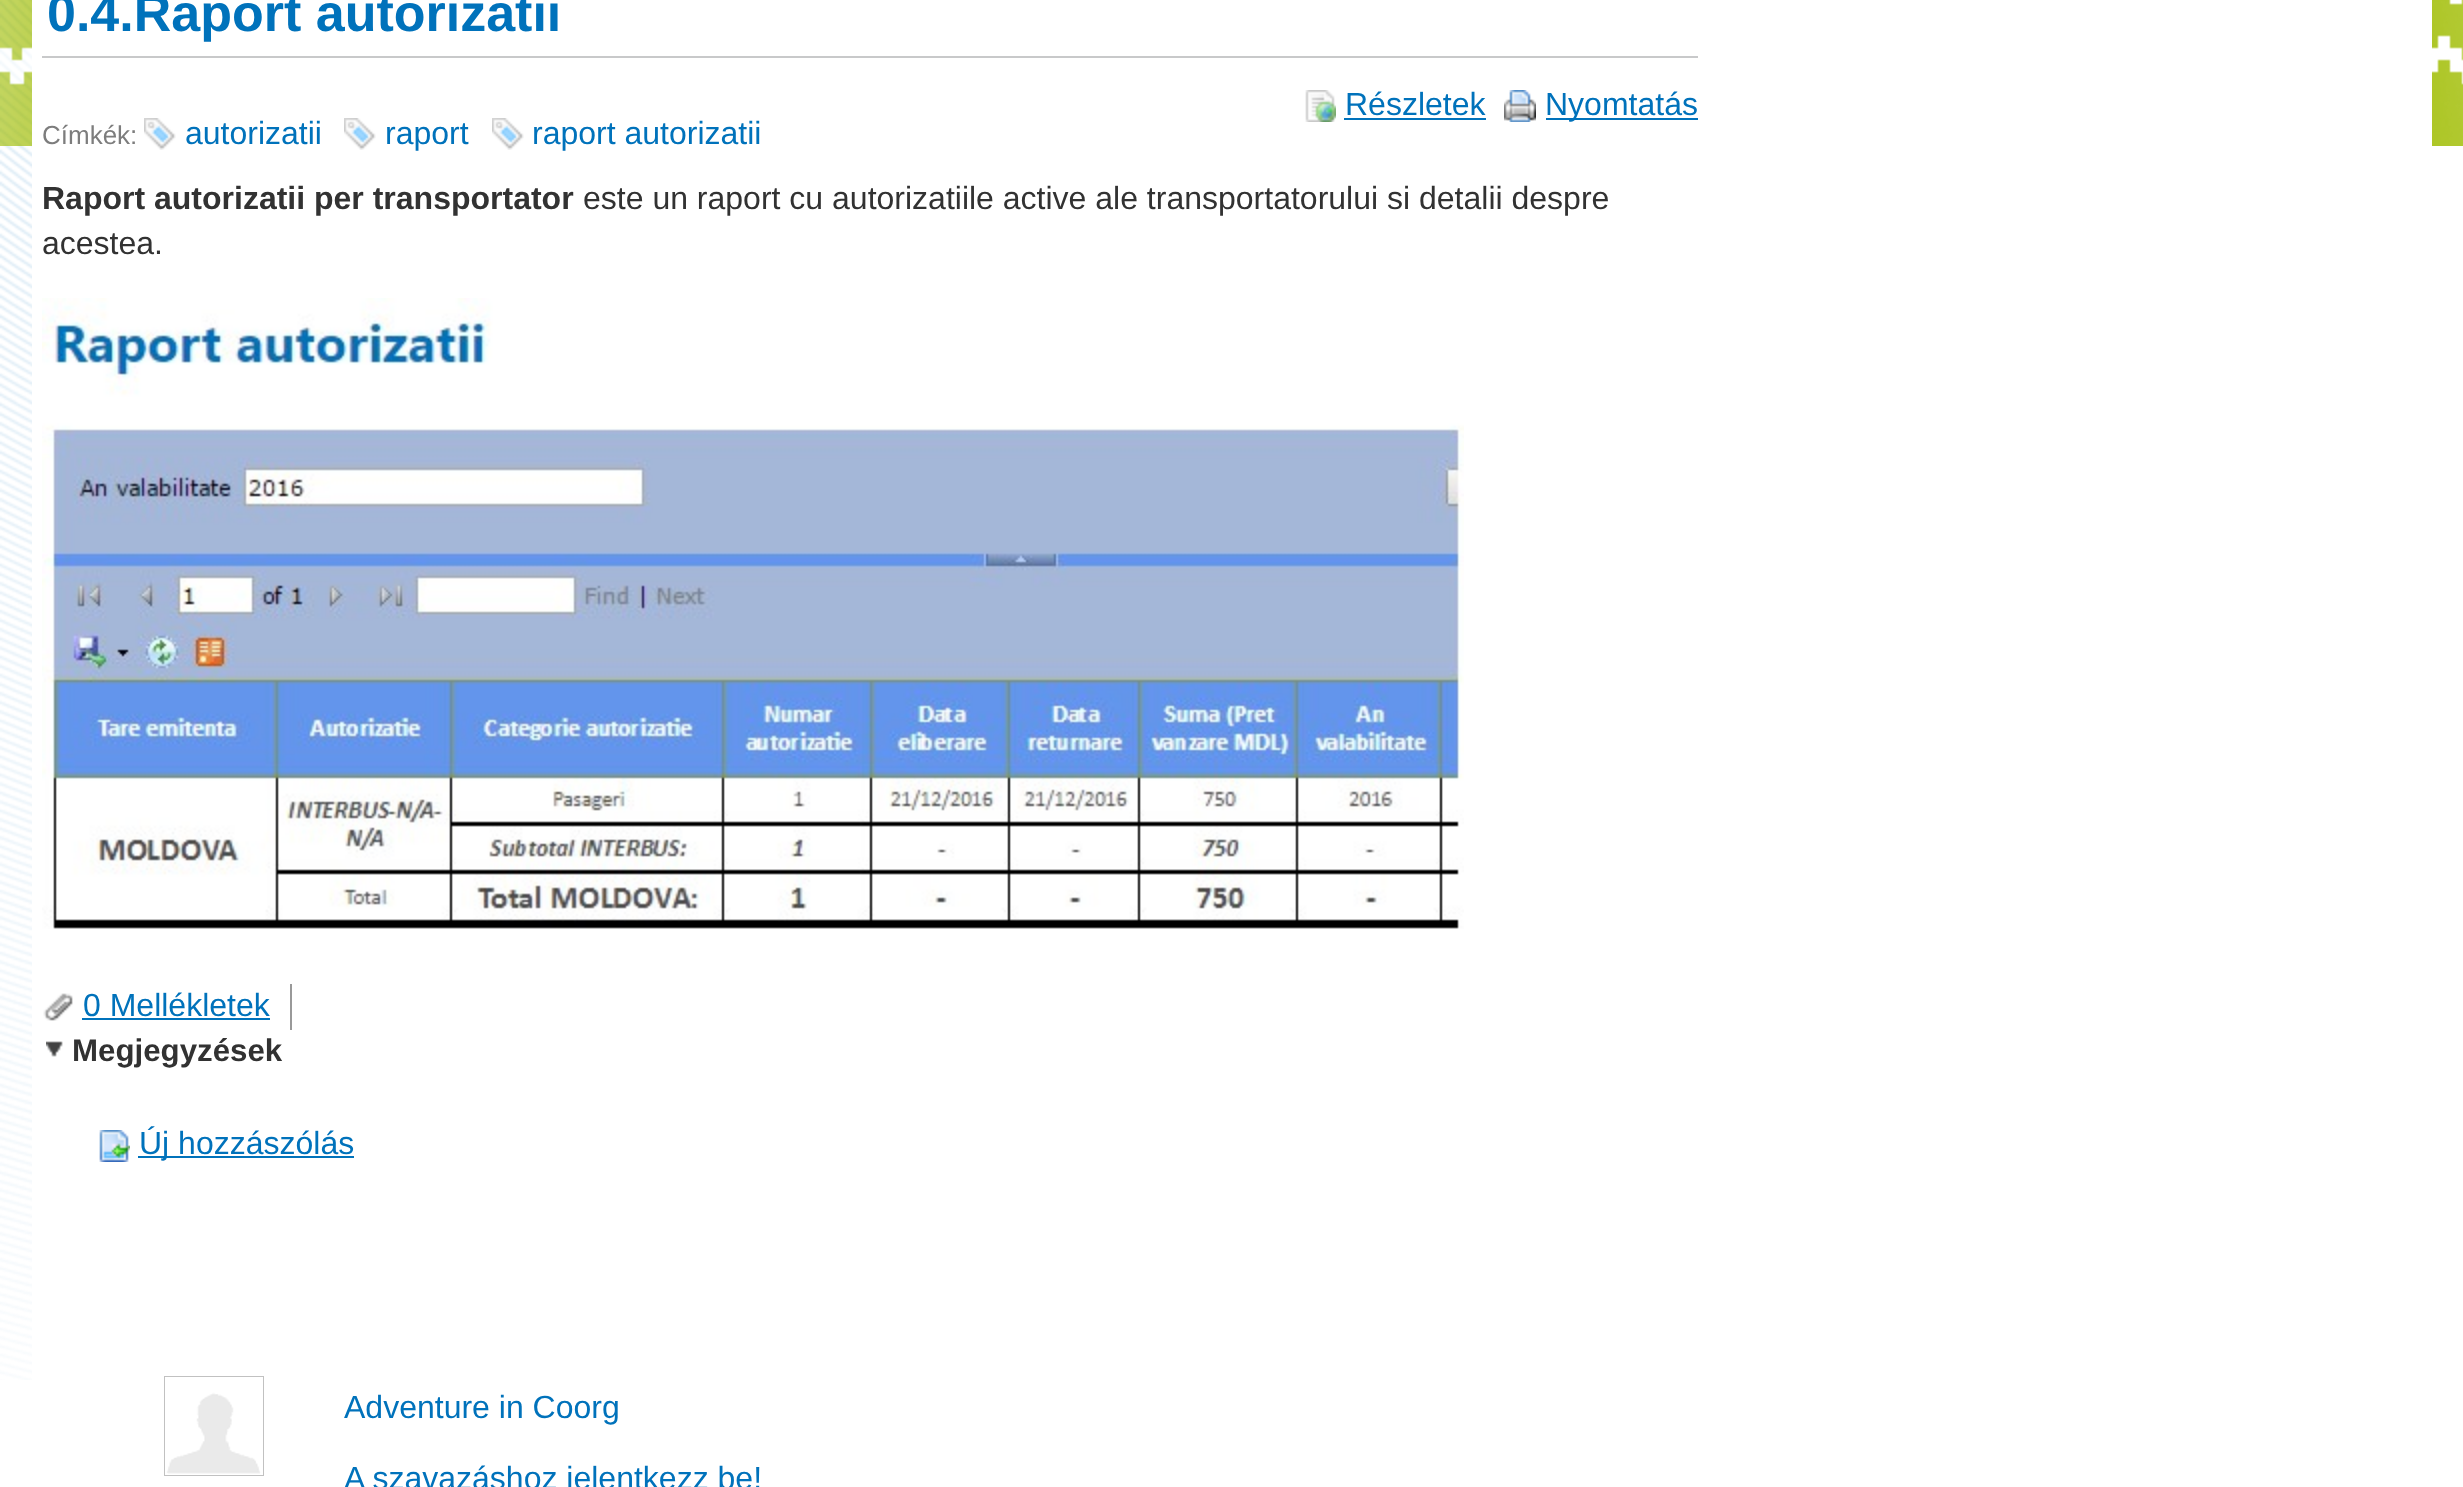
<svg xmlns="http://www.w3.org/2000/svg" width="2463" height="1487">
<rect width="100%" height="100%" fill="#fff"/>
<image x="0" y="0" width="32" height="1380" href="media/1.png"/>
<image x="0" y="0" width="2463" height="146" href="media/2.png"/>
<rect x="32" width="2400" height="146" fill="#fff"/>
<rect x="42" y="56" width="1656" height="2" fill="#c8c9ca"/>
<text x="47" y="31" style="font-family:Liberation Sans;font-size:52px;font-weight:bold;fill:#0072bb">0.4.Raport autorizatii</text>
<image x="1305" y="90" width="31" height="32" href="media/3.png"/>
<text x="1345" y="115" style="font-family:Liberation Sans;font-size:32px;fill:#0072bb">Részletek</text>
<rect x="1344" y="118" width="142" height="2" fill="#0072bb"/>
<image x="1504" y="90" width="32" height="32" href="media/4.png"/>
<rect x="1546" y="118" width="152" height="2" fill="#0072bb"/>
<text x="1545" y="115" style="font-family:Liberation Sans;font-size:32px;fill:#0072bb">Nyomtatás</text>
<text x="42" y="144" style="font-family:Liberation Sans;font-size:26px;fill:#7d7d7d">Címkék:</text>
<image x="144" y="118" width="32" height="32" href="media/5.png"/>
<text x="185" y="144" style="font-family:Liberation Sans;font-size:32px;fill:#0072bb">autorizatii</text>
<image x="344" y="118" width="32" height="32" href="media/5.png"/>
<text x="385" y="144" style="font-family:Liberation Sans;font-size:32px;fill:#0072bb">raport</text>
<image x="492" y="118" width="32" height="32" href="media/5.png"/>
<text x="532" y="144" style="font-family:Liberation Sans;font-size:32px;fill:#0072bb">raport autorizatii</text>
<text x="42" y="209" style="font-family:Liberation Sans;font-size:32px;font-weight:bold;fill:#323232">Raport autorizatii per transportator</text>
<text x="583" y="209" style="font-family:Liberation Sans;font-size:32px;fill:#323232">este un raport cu autorizatiile active ale transportatorului si detalii despre</text>
<text x="42" y="254" style="font-family:Liberation Sans;font-size:32px;fill:#323232">acestea.</text>
<image x="42" y="298" width="1422" height="631" href="media/6.png"/>
<rect x="290" y="984" width="2" height="46" fill="#999"/>
<image x="43" y="993" width="30" height="28" href="media/7.png"/>
<text x="83" y="1016" style="font-family:Liberation Sans;font-size:32px;fill:#0072bb">0 Mellékletek</text>
<rect x="82" y="1018" width="188" height="2" fill="#0072bb"/>
<image x="46" y="1041" width="17" height="16" href="media/8.png"/>
<text x="72" y="1061" style="font-family:Liberation Sans;font-size:31.25px;font-weight:bold;fill:#323232">Megjegyzések</text>
<image x="99" y="1130" width="31" height="32" href="media/9.png"/>
<rect x="138" y="1156" width="216" height="2" fill="#0072bb"/>
<text x="139" y="1154" style="font-family:Liberation Sans;font-size:32px;fill:#0072bb">Új hozzászólás</text>
<image x="164" y="1376" width="100" height="100" href="media/10.png"/>
<text x="344" y="1418" style="font-family:Liberation Sans;font-size:32px;fill:#0072bb">Adventure in Coorg</text>
<text x="344" y="1489" style="font-family:Liberation Sans;font-size:32px;fill:#0072bb">A szavazáshoz jelentkezz be!</text>
</svg>
